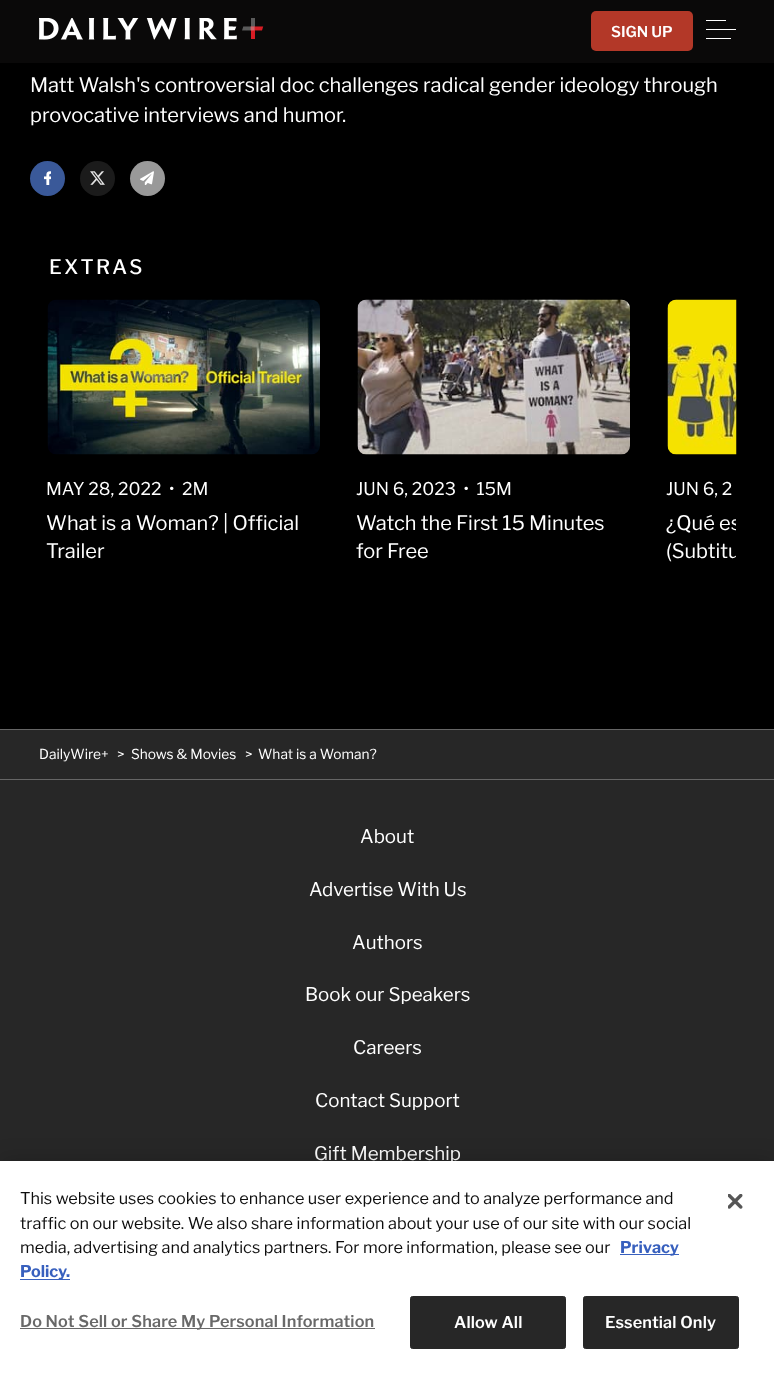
<svg xmlns="http://www.w3.org/2000/svg" width="774" height="1373">
<defs>
<clipPath id="clip1"><rect x="666" y="510" width="70" height="56"/></clipPath>
</defs>
<rect width="100%" height="100%" fill="#000"/>
<rect y="3" width="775" height="62" fill="#00000066" filter="blur(12.5px)"/>
<rect width="774" height="63" fill="#0a0909"/>
<image x="39" y="18" width="225" height="22" href="media/1.png"/>
<rect x="591" y="11" width="102" height="40" rx="5" fill="#b33828"/>
<text x="611" y="37" style="font-family:Libre Franklin;font-size:15px;font-weight:600;fill:#fff">SIGN UP</text>
<rect x="706" y="20" width="20" height="1" fill="#fff"/>
<rect x="706" y="29" width="30" height="1" fill="#fff"/>
<rect x="706" y="38" width="25" height="1" fill="#fff"/>
<text x="30" y="92" style="font-family:Libre Franklin;font-size:20px;fill:#fff">Matt Walsh's controversial doc challenges radical gender ideology through</text>
<text x="30" y="122" style="font-family:Libre Franklin;font-size:20px;fill:#fff">provocative interviews and humor.</text>
<circle cx="47.5" cy="178.5" r="17.5" fill="#3a5999"/>
<image x="44" y="171" width="7" height="14" href="media/2.png"/>
<circle cx="97.5" cy="178.5" r="17.5" fill="#1b1b1b"/>
<image x="90" y="171" width="15" height="14" href="media/3.png"/>
<circle cx="147.5" cy="178.5" r="17.5" fill="#999"/>
<image x="140" y="171" width="14" height="14" href="media/4.png"/>
<text x="49" y="274" style="font-family:Libre Franklin;font-size:20px;font-weight:500;letter-spacing:2.5px;fill:#fff">EXTRAS</text>
<image x="47" y="299" width="273" height="156" href="media/5.png"/>
<text x="46" y="495" style="font-family:Libre Franklin;font-size:17.5px;fill:#fff" xml:space="preserve">MAY 28, 2022  •  2M</text>
<text x="46" y="530" style="font-family:Libre Franklin;font-size:20px;fill:#fff">What is a Woman? | Official</text>
<text x="46" y="558" style="font-family:Libre Franklin;font-size:20px;fill:#fff">Trailer</text>
<image x="357" y="299" width="273" height="156" href="media/6.png"/>
<text x="356" y="495" style="font-family:Libre Franklin;font-size:17.5px;fill:#fff" xml:space="preserve">JUN 6, 2023  •  15M</text>
<text x="356" y="530" style="font-family:Libre Franklin;font-size:20px;fill:#fff">Watch the First 15 Minutes</text>
<text x="356" y="558" style="font-family:Libre Franklin;font-size:20px;fill:#fff">for Free</text>
<image x="667" y="299" width="70" height="156" href="media/7.png"/>
<text x="666" y="495" style="font-family:Libre Franklin;font-size:17.5px;fill:#fff">JUN 6, 2</text>
<g clip-path="url(#clip1)">
<text x="666" y="530" style="font-family:Libre Franklin;font-size:20px;fill:#fff">¿Qué es</text>
<text x="666" y="558" style="font-family:Libre Franklin;font-size:20px;fill:#fff">(Subtitu</text>
</g>
<rect y="730" width="774" height="49" fill="#272727"/>
<rect y="729" width="774" height="1" fill="#666"/>
<text x="39" y="759" style="font-family:Libre Franklin;font-size:13.75px;fill:#fff">DailyWire+</text>
<text x="117" y="759" style="font-family:Libre Franklin;font-size:13.75px;fill:#fff">&gt;</text>
<text x="131" y="759" style="font-family:Libre Franklin;font-size:13.75px;fill:#fff">Shows &amp; Movies</text>
<text x="245" y="759" style="font-family:Libre Franklin;font-size:13.75px;fill:#fff">&gt;</text>
<text x="258" y="759" style="font-family:Libre Franklin;font-size:13.75px;fill:#fff">What is a Woman?</text>
<rect y="780" width="774" height="381" fill="#272727"/>
<rect y="779" width="774" height="1" fill="#666"/>
<text x="360" y="843" style="font-family:Libre Franklin;font-size:18.75px;fill:#fff">About</text>
<text x="309" y="896" style="font-family:Libre Franklin;font-size:18.75px;fill:#fff">Advertise With Us</text>
<text x="352" y="949" style="font-family:Libre Franklin;font-size:18.75px;fill:#fff">Authors</text>
<text x="305" y="1001" style="font-family:Libre Franklin;font-size:18.75px;fill:#fff">Book our Speakers</text>
<text x="353" y="1054" style="font-family:Libre Franklin;font-size:18.75px;fill:#fff">Careers</text>
<text x="315" y="1107" style="font-family:Libre Franklin;font-size:18.75px;fill:#fff">Contact Support</text>
<text x="314" y="1160" style="font-family:Libre Franklin;font-size:18.75px;fill:#fff">Gift Membership</text>
<rect y="1161" width="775" height="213" fill="#00000033" filter="blur(11px)"/>
<rect y="1161" width="774" height="212" fill="#fff"/>
<text x="20" y="1204" style="font-family:Libre Franklin;font-size:16.25px;fill:#0d0d0d">This website uses cookies to enhance user experience and to analyze performance and</text>
<text x="20" y="1229" style="font-family:Libre Franklin;font-size:16.25px;fill:#0d0d0d">traffic on our website. We also share information about your use of our site with our social</text>
<text x="20" y="1253" style="font-family:Libre Franklin;font-size:16.25px;fill:#0d0d0d">media, advertising and analytics partners. For more information, please see our</text>
<rect x="620" y="1254" width="59" height="1" fill="#3860be"/>
<text x="620" y="1253" style="font-family:Libre Franklin;font-size:16.25px;font-weight:bold;fill:#3860be">Privacy</text>
<rect x="20" y="1279" width="50" height="1" fill="#3860be"/>
<text x="20" y="1277" style="font-family:Libre Franklin;font-size:16.25px;font-weight:bold;fill:#3860be">Policy.</text>
<rect x="20" y="1328" width="355" height="1" fill="#696969"/>
<text x="20" y="1327" style="font-family:Libre Franklin;font-size:16.25px;font-weight:600;letter-spacing:0.15px;fill:#696969">Do Not Sell or Share My Personal Information</text>
<rect x="410.5" y="1296.5" width="155" height="52" rx="2" fill="#272727" stroke="#272727"/>
<text x="454" y="1328" style="font-family:Libre Franklin;font-size:16.25px;font-weight:600;letter-spacing:0.15px;fill:#fff">Allow All</text>
<rect x="583.5" y="1296.5" width="155" height="52" rx="2" fill="#272727" stroke="#272727"/>
<text x="605" y="1328" style="font-family:Libre Franklin;font-size:16.25px;font-weight:600;letter-spacing:0.15px;fill:#fff">Essential Only</text>
<image x="728" y="1194" width="15" height="15" href="media/8.png"/>
</svg>
